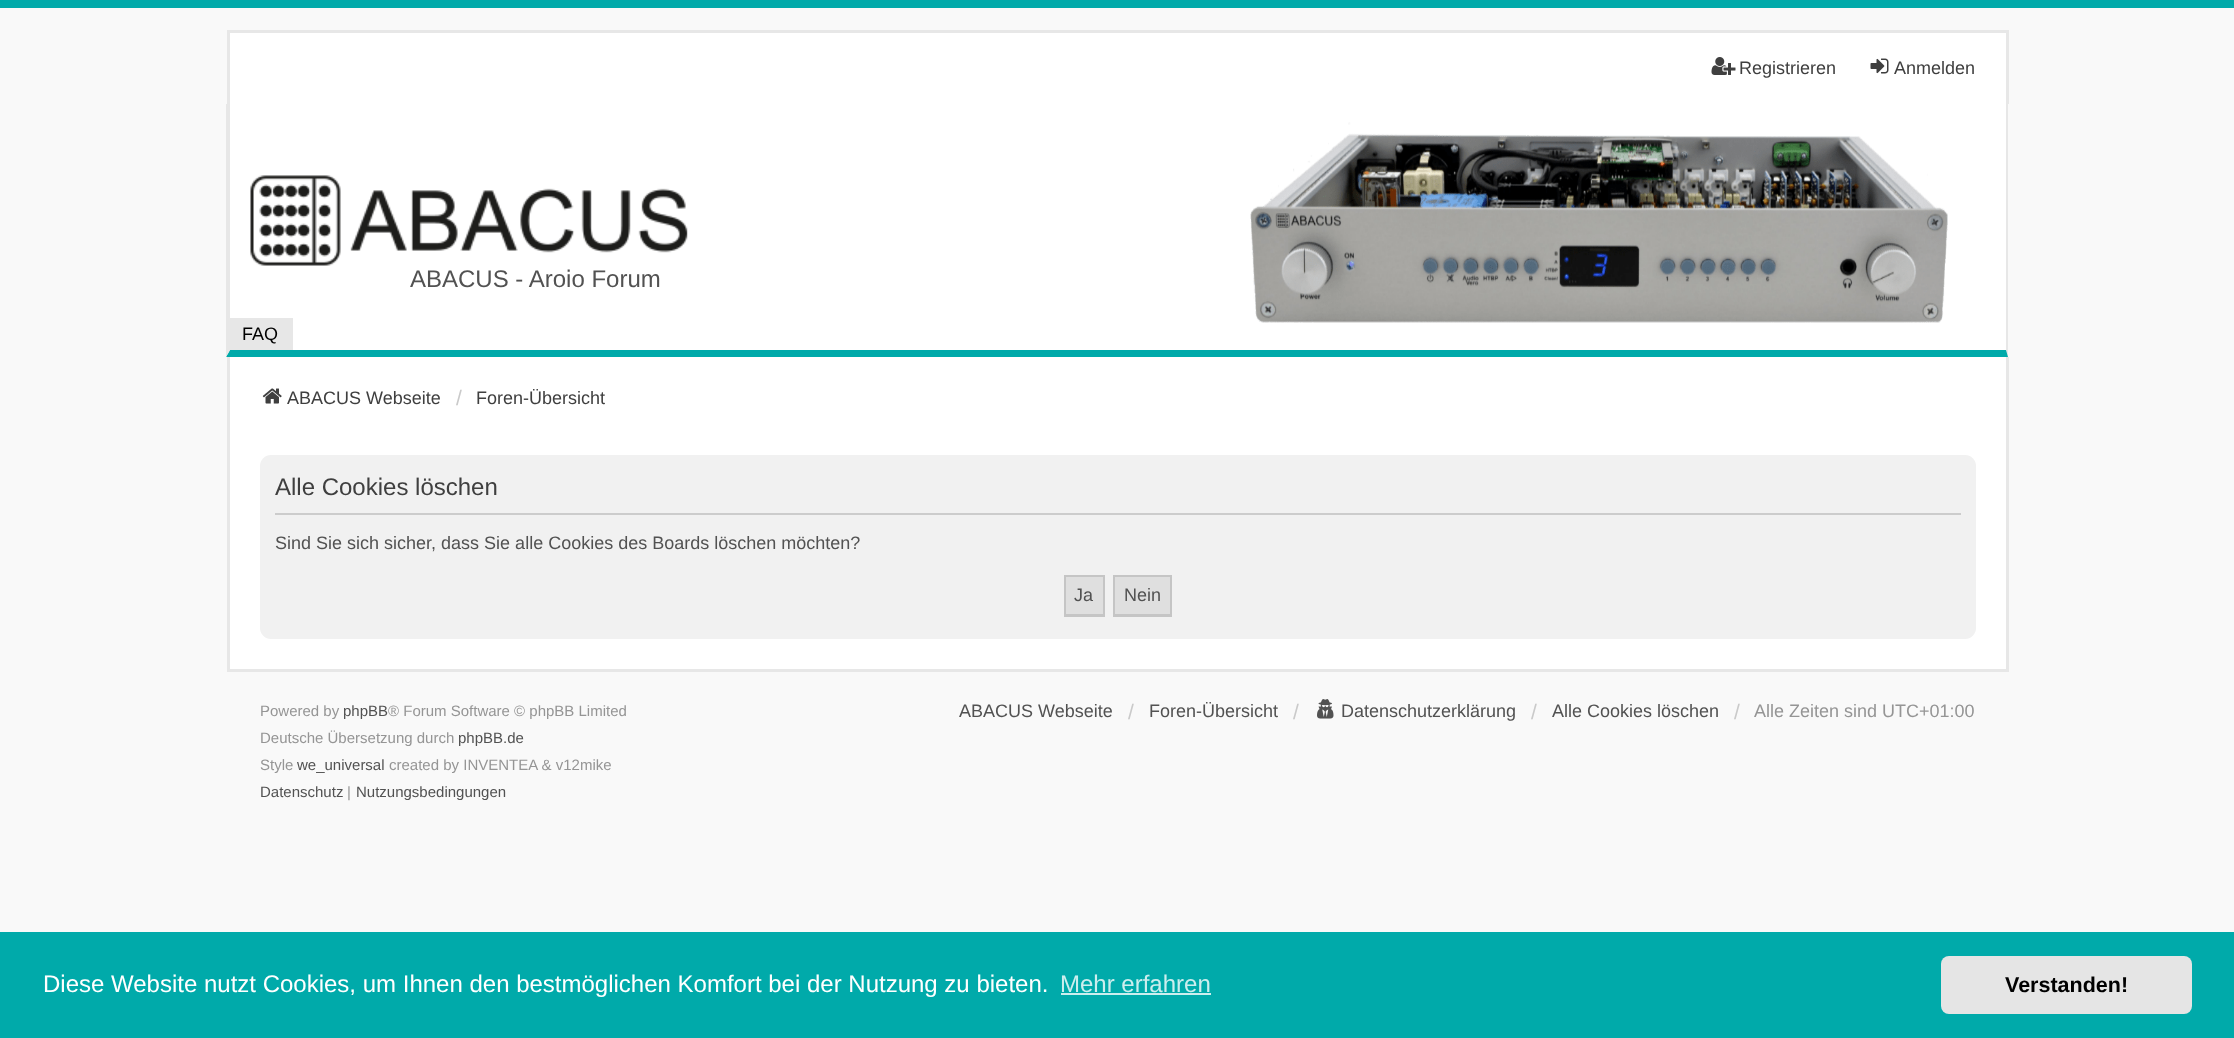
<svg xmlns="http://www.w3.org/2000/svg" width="2234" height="1038">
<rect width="100%" height="100%" fill="#f9f9f9"/>
<rect width="2234" height="8" fill="#0aa"/>
<rect x="230" y="33" width="1776" height="317" fill="#fff"/>
<rect x="227" y="30" width="1782" height="3" fill="#e7e7e7"/>
<rect x="2006" y="30" width="3" height="74" fill="#e7e7e7"/>
<rect x="227" y="30" width="3" height="74" fill="#e7e7e7"/>
<image x="1711" y="57" width="25" height="18" href="media/1.png"/>
<text x="1739" y="74" style="font-family:Liberation Sans;font-size:18px;fill:#3f3f3f">Registrieren</text>
<image x="1870" y="58" width="19" height="16" href="media/2.png"/>
<text x="1894" y="74" style="font-family:Liberation Sans;font-size:18px;fill:#3f3f3f">Anmelden</text>
<image x="1250" y="122" width="698" height="201" href="media/3.png"/>
<path d="M2008 104v253l-2-7v-246z" fill="#e7e7e7"/>
<path d="M2008 357h-1782l4-7h1776z" fill="#0aa"/>
<path d="M226 357v-253h4v246z" fill="#e7e7e7"/>
<image x="250" y="175" width="438" height="91" href="media/4.png"/>
<text x="410" y="287" style="font-family:Liberation Sans;font-size:24px;fill:#525252">ABACUS - Aroio Forum</text>
<rect x="230" y="318" width="63" height="32" fill="#e7e7e7"/>
<text x="242" y="340" style="font-family:Liberation Sans;font-size:18px;fill:#000">FAQ</text>
<rect x="230" y="357" width="1776" height="312" fill="#fff"/>
<rect x="2006" y="357" width="3" height="315" fill="#e7e7e7"/>
<rect x="227" y="669" width="1782" height="3" fill="#e7e7e7"/>
<rect x="227" y="357" width="3" height="315" fill="#e7e7e7"/>
<image x="262" y="388" width="20" height="16" href="media/5.png"/>
<text x="287" y="404" style="font-family:Liberation Sans;font-size:18px;fill:#3f3f3f">ABACUS Webseite</text>
<text x="456" y="405" style="font-family:Liberation Sans;font-size:21px;fill:#cacaca">/</text>
<text x="476" y="404" style="font-family:Liberation Sans;font-size:18px;fill:#3f3f3f">Foren-Übersicht</text>
<rect x="260" y="455" width="1716" height="184" rx="11" fill="#f1f1f1"/>
<rect x="275" y="513" width="1686" height="2" fill="#ccc"/>
<text x="275" y="495" style="font-family:Liberation Sans;font-size:24px;fill:#3f3f3f">Alle Cookies löschen</text>
<text x="275" y="549" style="font-family:Liberation Sans;font-size:18px;fill:#525252">Sind Sie sich sicher, dass Sie alle Cookies des Boards löschen möchten?</text>
<rect x="1066" y="577" width="37" height="37" fill="#dfdfdf"/>
<rect x="1064" y="575" width="40" height="2" fill="#c5c5c5"/>
<rect x="1103" y="575" width="2" height="42" fill="#c5c5c5"/>
<rect x="1064" y="614" width="40" height="3" fill="#c5c5c5"/>
<rect x="1064" y="575" width="2" height="42" fill="#c5c5c5"/>
<text x="1074" y="601" style="font-family:Liberation Sans;font-size:18px;fill:#525252">Ja</text>
<rect x="1115" y="577" width="55" height="37" fill="#dfdfdf"/>
<rect x="1113" y="575" width="59" height="2" fill="#c5c5c5"/>
<rect x="1170" y="575" width="2" height="42" fill="#c5c5c5"/>
<rect x="1113" y="614" width="59" height="3" fill="#c5c5c5"/>
<rect x="1113" y="575" width="2" height="42" fill="#c5c5c5"/>
<text x="1124" y="601" style="font-family:Liberation Sans;font-size:18px;fill:#525252">Nein</text>
<text x="260" y="716" style="font-family:Liberation Sans;font-size:15px;fill:#959595">Powered by</text>
<text x="343" y="716" style="font-family:Liberation Sans;font-size:15px;fill:#525252">phpBB</text>
<text x="388" y="716" style="font-family:Liberation Sans;font-size:15px;fill:#959595">® Forum Software © phpBB Limited</text>
<text x="260" y="743" style="font-family:Liberation Sans;font-size:15px;fill:#959595">Deutsche Übersetzung durch</text>
<text x="458" y="743" style="font-family:Liberation Sans;font-size:15px;fill:#525252">phpBB.de</text>
<text x="260" y="770" style="font-family:Liberation Sans;font-size:15px;fill:#959595">Style</text>
<text x="297" y="770" style="font-family:Liberation Sans;font-size:15px;fill:#525252">we_universal</text>
<text x="389" y="770" style="font-family:Liberation Sans;font-size:15px;fill:#959595">created by INVENTEA &amp; v12mike</text>
<text x="260" y="797" style="font-family:Liberation Sans;font-size:15px;fill:#525252">Datenschutz</text>
<text x="347" y="797" style="font-family:Liberation Sans;font-size:15px;fill:#959595">|</text>
<text x="356" y="797" style="font-family:Liberation Sans;font-size:15px;fill:#525252">Nutzungsbedingungen</text>
<text x="959" y="717" style="font-family:Liberation Sans;font-size:18px;fill:#525252">ABACUS Webseite</text>
<text x="1128" y="719" style="font-family:Liberation Sans;font-size:21px;fill:#cacaca">/</text>
<text x="1149" y="717" style="font-family:Liberation Sans;font-size:18px;fill:#525252">Foren-Übersicht</text>
<text x="1293" y="719" style="font-family:Liberation Sans;font-size:21px;fill:#cacaca">/</text>
<image x="1317" y="699" width="17" height="20" href="media/6.png"/>
<text x="1341" y="717" style="font-family:Liberation Sans;font-size:18px;fill:#525252">Datenschutzerklärung</text>
<text x="1531" y="719" style="font-family:Liberation Sans;font-size:21px;fill:#cacaca">/</text>
<text x="1552" y="717" style="font-family:Liberation Sans;font-size:18px;fill:#525252">Alle Cookies löschen</text>
<text x="1734" y="719" style="font-family:Liberation Sans;font-size:21px;fill:#cacaca">/</text>
<text x="1754" y="717" style="font-family:Liberation Sans;font-size:18px;fill:#959595">Alle Zeiten sind UTC+01:00</text>
<rect y="932" width="2234" height="106" fill="#0aa"/>
<text x="43" y="992" style="font-family:Liberation Sans;font-size:24px;fill:#fff">Diese Website nutzt Cookies, um Ihnen den bestmöglichen Komfort bei der Nutzung zu bieten.</text>
<text x="1060" y="992" style="font-family:Liberation Sans;font-size:24px;fill:#cee">Mehr erfahren</text>
<rect x="1061" y="993" width="150" height="2" fill="#cee"/>
<rect x="1941" y="956" width="251" height="58" rx="8" fill="#e5e5e5"/>
<text x="2005" y="992" style="font-family:Liberation Sans;font-size:21.5px;font-weight:bold;fill:#000">Verstanden!</text>
</svg>
